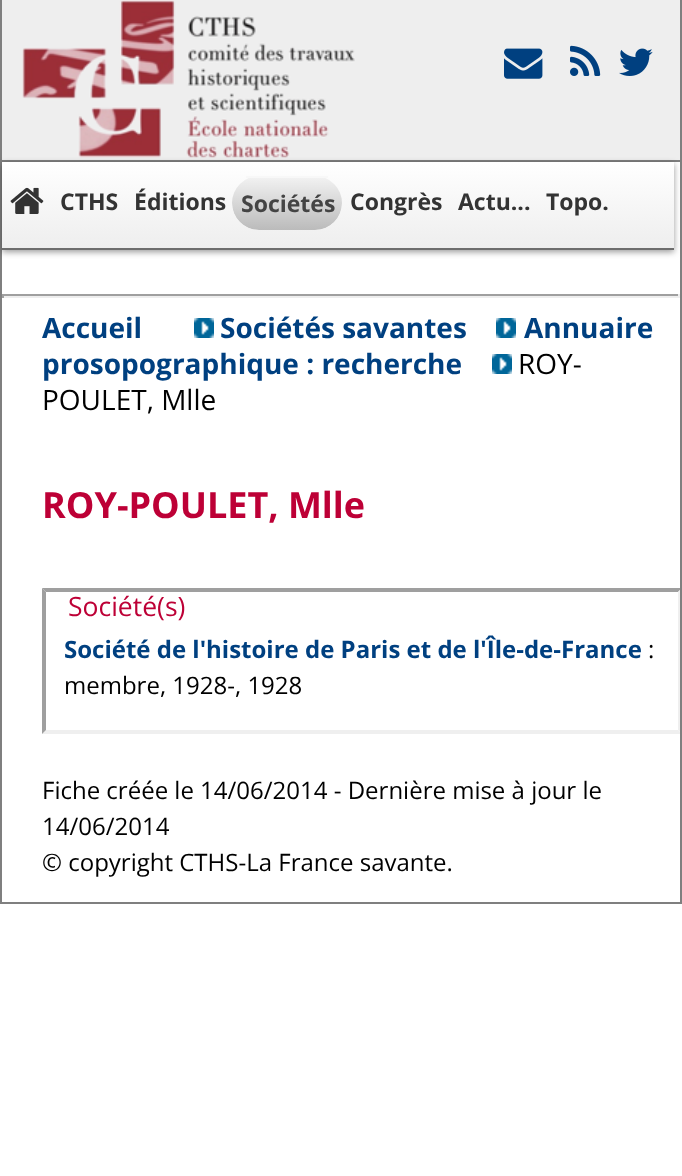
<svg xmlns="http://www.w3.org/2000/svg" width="682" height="1176">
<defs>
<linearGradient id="g1" gradientUnits="userSpaceOnUse" x1="2" y1="162" x2="2" y2="248"><stop offset="0" stop-color="#fff"/><stop offset="1" stop-color="#eee"/></linearGradient>
<clipPath id="clip1"><rect x="232" y="176" width="110" height="54" rx="27"/></clipPath>
<linearGradient id="g2" gradientUnits="userSpaceOnUse" x1="232" y1="178" x2="232" y2="230"><stop offset="0" stop-color="#f1f1f1"/><stop offset="1" stop-color="#bbb"/></linearGradient>
<clipPath id="clip2"><rect x="2" y="310" width="678" height="592"/></clipPath>
</defs>
<rect width="100%" height="100%" fill="#fff"/>
<rect x="680" width="2" height="904" fill="#7f7f7f"/>
<rect y="902" width="682" height="2" fill="#7f7f7f"/>
<rect width="2" height="904" fill="#7f7f7f"/>
<rect x="2" width="678" height="160" fill="#eee"/>
<rect x="2" y="160" width="678" height="2" fill="#7f7f7f"/>
<image x="22" y="0" width="333" height="158" href="media/1.png"/>
<image x="504" y="48" width="39" height="31" href="media/2.png"/>
<image x="570" y="45" width="31" height="31" href="media/3.png"/>
<image x="619" y="48" width="34" height="28" href="media/4.png"/>
<rect x="2" y="164" width="672" height="88" fill="#00000066" filter="blur(3px)"/>
<rect x="2" y="162" width="672" height="86" fill="url(#g1)"/>
<rect x="2" y="248" width="672" height="2" fill="#6d6d6d"/>
<image x="10" y="187" width="34" height="27" href="media/5.png"/>
<text x="60" y="210" style="font-family:Open Sans;font-size:23px;font-weight:bold;fill:#333">CTHS</text>
<text x="134" y="210" style="font-family:Open Sans;font-size:23px;font-weight:bold;fill:#333">Éditions</text>
<g clip-path="url(#clip1)">
<path d="M232 178h110v25c0 15-12 27-27 27h-56c-15 0-27-12-27-27z" fill="url(#g2)"/>
</g>
<rect x="246" y="176" width="82" height="2" fill="#f8f8f8"/>
<text x="241" y="212" style="font-family:Open Sans;font-size:23px;font-weight:bold;fill:#444">Sociétés</text>
<text x="350" y="210" style="font-family:Open Sans;font-size:23px;font-weight:bold;fill:#333">Congrès</text>
<text x="458" y="210" style="font-family:Open Sans;font-size:23px;font-weight:bold;fill:#333">Actu...</text>
<text x="546" y="210" style="font-family:Open Sans;font-size:23px;font-weight:bold;fill:#333">Topo.</text>
<rect x="2" y="294" width="678" height="2" fill="#9f9f9f"/>
<rect x="678" y="294" width="2" height="4" fill="#eee"/>
<rect x="2" y="296" width="678" height="2" fill="#eee"/>
<rect x="2" y="294" width="2" height="4" fill="#9f9f9f"/>
<text x="42" y="338" style="font-family:Open Sans;font-size:28px;font-weight:bold;fill:#004080">Accueil</text>
<image x="194" y="318" width="20" height="20" href="media/6.png"/>
<text x="220" y="338" style="font-family:Open Sans;font-size:28px;font-weight:bold;fill:#004080">Sociétés savantes</text>
<image x="496" y="318" width="20" height="20" href="media/6.png"/>
<text x="524" y="338" style="font-family:Open Sans;font-size:28px;font-weight:bold;fill:#004080">Annuaire</text>
<text x="42" y="374" style="font-family:Open Sans;font-size:28px;font-weight:bold;fill:#004080">prosopographique : recherche</text>
<image x="492" y="354" width="20" height="20" href="media/6.png"/>
<text x="518" y="374" style="font-family:Open Sans;font-size:28px;fill:#000">ROY-</text>
<text x="42" y="410" style="font-family:Open Sans;font-size:28px;fill:#000">POULET, Mlle</text>
<text x="42" y="518" style="font-family:Open Sans;font-size:36px;font-weight:bold;fill:#bd0036">ROY-POULET, Mlle</text>
<g clip-path="url(#clip2)">
<path d="M42 588h640l-4 4h-632z" fill="#9f9f9f"/>
<path d="M682 588v146l-4-4v-138z" fill="#efefef"/>
<path d="M682 734h-640l4-4h632z" fill="#efefef"/>
</g>
<path d="M42 734v-146l4 4v138z" fill="#9f9f9f"/>
<text x="68" y="616" style="font-family:Open Sans;font-size:26.5px;fill:#bd0036">Société(s)</text>
<text x="64" y="658" style="font-family:Open Sans;font-size:24px;font-weight:bold;fill:#004080">Société de l'histoire de Paris et de l'Île-de-France</text>
<text x="648" y="658" style="font-family:Open Sans;font-size:24px;fill:#000">:</text>
<text x="64" y="694" style="font-family:Open Sans;font-size:24px;fill:#000">membre, 1928-, 1928</text>
<text x="42" y="799" style="font-family:Open Sans;font-size:24px;fill:#000">Fiche créée le 14/06/2014 - Dernière mise à jour le</text>
<text x="42" y="835" style="font-family:Open Sans;font-size:24px;fill:#000">14/06/2014</text>
<text x="42" y="871" style="font-family:Open Sans;font-size:24px;fill:#000">© copyright CTHS-La France savante.</text>
</svg>
